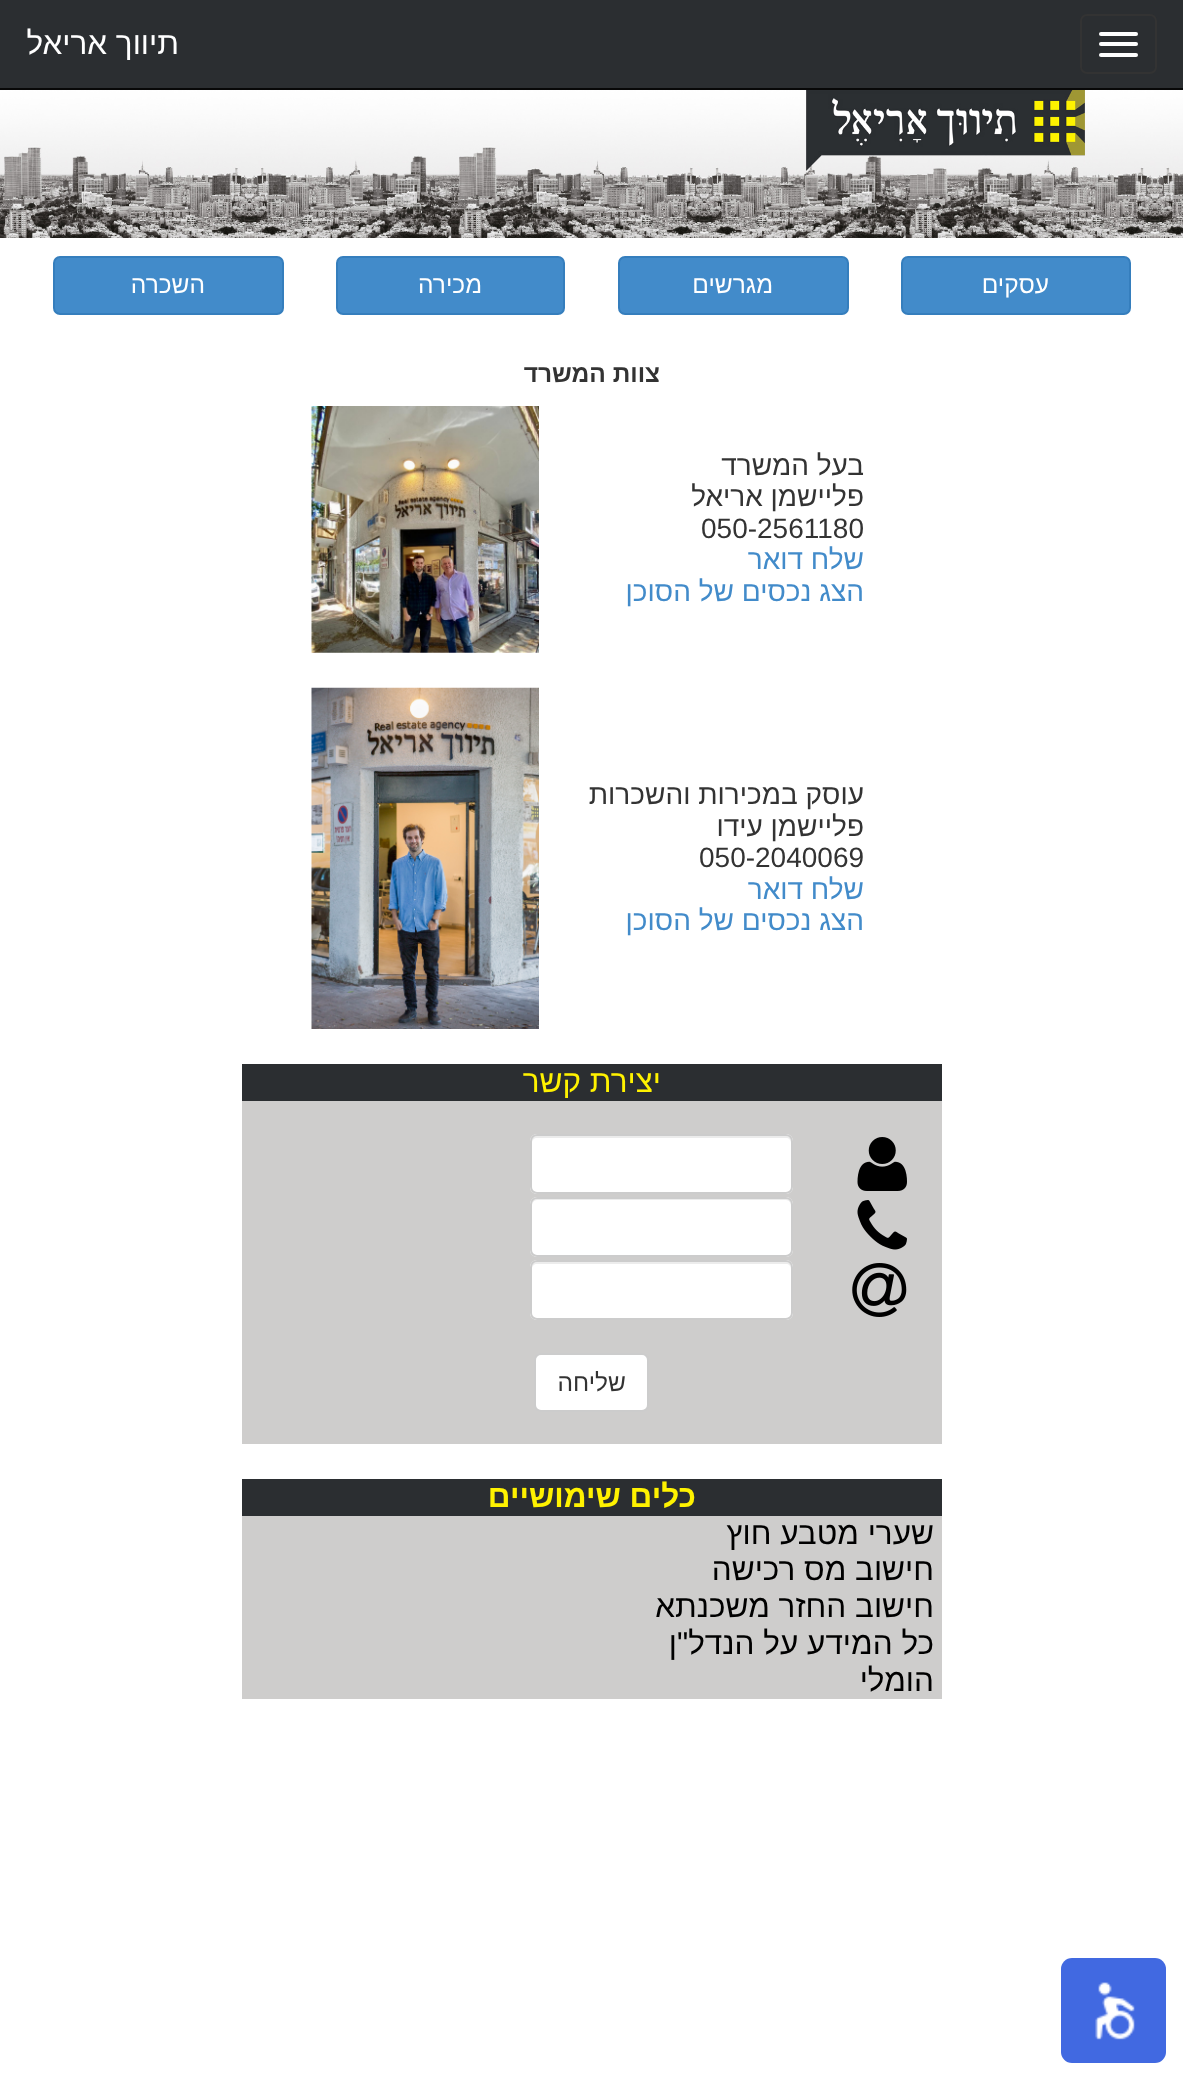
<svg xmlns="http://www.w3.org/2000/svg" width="1183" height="2080">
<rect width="100%" height="100%" fill="#fff"/>
<rect width="1183" height="88" fill="#2b2e31"/>
<rect y="88" width="1183" height="2" fill="#080808"/>
<rect x="1081" y="15" width="75" height="58" rx="6" fill="none" stroke="#333" stroke-width="2"/>
<rect x="1099" y="32" width="39" height="4" rx="2" fill="#fff"/>
<rect x="1099" y="42" width="39" height="4" rx="2" fill="#fff"/>
<rect x="1099" y="53" width="39" height="4" rx="2" fill="#fff"/>
<text x="179" y="54" style="font-family:Liberation Sans;font-size:31.5px;direction:rtl;fill:#fff">תיווך אריאל</text>
<image x="0" y="90" width="1183" height="148" href="media/1.png"/>
<rect x="902" y="257" width="228" height="57" rx="6" fill="#428bca" stroke="#357ebd" stroke-width="2"/>
<text x="1049" y="293" style="font-family:Liberation Sans;font-size:24.5px;direction:rtl;fill:#fff">עסקים</text>
<rect x="619" y="257" width="229" height="57" rx="6" fill="#428bca" stroke="#357ebd" stroke-width="2"/>
<text x="773" y="293" style="font-family:Liberation Sans;font-size:24.5px;direction:rtl;fill:#fff">מגרשים</text>
<rect x="337" y="257" width="227" height="57" rx="6" fill="#428bca" stroke="#357ebd" stroke-width="2"/>
<text x="482" y="293" style="font-family:Liberation Sans;font-size:24.5px;direction:rtl;fill:#fff">מכירה</text>
<rect x="54" y="257" width="229" height="57" rx="6" fill="#428bca" stroke="#357ebd" stroke-width="2"/>
<text x="205" y="293" style="font-family:Liberation Sans;font-size:24.5px;direction:rtl;fill:#fff">השכרה</text>
<text x="660" y="382" style="font-family:Liberation Sans;font-size:24.5px;font-weight:bold;direction:rtl;fill:#333">צוות המשרד</text>
<text x="864" y="475" style="font-family:Liberation Sans;font-size:28px;direction:rtl;fill:#333">בעל המשרד</text>
<text x="864" y="506" style="font-family:Liberation Sans;font-size:28px;direction:rtl;fill:#333">פליישמן אריאל</text>
<text x="701" y="538" style="font-family:Liberation Sans;font-size:28px;fill:#333">050-2561180</text>
<text x="864" y="569" style="font-family:Liberation Sans;font-size:28px;direction:rtl;fill:#428bca">שלח דואר</text>
<text x="864" y="601" style="font-family:Liberation Sans;font-size:28px;direction:rtl;fill:#428bca">הצג נכסים של הסוכן</text>
<image x="311" y="406" width="228" height="247" href="media/2.png"/>
<text x="864" y="804" style="font-family:Liberation Sans;font-size:28px;direction:rtl;fill:#333">עוסק במכירות והשכרות</text>
<text x="864" y="836" style="font-family:Liberation Sans;font-size:28px;direction:rtl;fill:#333">פליישמן עידו</text>
<text x="699" y="867" style="font-family:Liberation Sans;font-size:28px;fill:#333">050-2040069</text>
<text x="864" y="899" style="font-family:Liberation Sans;font-size:28px;direction:rtl;fill:#428bca">שלח דואר</text>
<text x="864" y="930" style="font-family:Liberation Sans;font-size:28px;direction:rtl;fill:#428bca">הצג נכסים של הסוכן</text>
<image x="311" y="687" width="228" height="342" href="media/3.png"/>
<rect x="242" y="1101" width="700" height="343" fill="#cecdcc"/>
<rect x="242" y="1064" width="700" height="37" fill="#2b2e31"/>
<text x="661" y="1092" style="font-family:Liberation Sans;font-size:31.5px;direction:rtl;fill:#fff200">יצירת קשר</text>
<image x="857" y="1137" width="50" height="54" href="media/4.png"/>
<rect x="530" y="1134" width="263" height="60" rx="7" fill="#fff"/>
<path d="M537 1138h249c3 0 5 2 5 5v-2c0-3-2-5-5-5h-249c-3 0-5 2-5 5v2c0-3 2-5 5-5z" fill="#ececec"/>
<rect x="531" y="1135" width="261" height="58" rx="6" fill="none" stroke="#ccc" stroke-width="2"/>
<image x="857" y="1200" width="50" height="50" href="media/5.png"/>
<rect x="530" y="1197" width="263" height="60" rx="7" fill="#fff"/>
<path d="M537 1200h249c3 0 5 3 5 6v-2c0-3-2-5-5-5h-249c-3 0-5 2-5 5v2c0-3 2-6 5-6z" fill="#ececec"/>
<rect x="531" y="1198" width="261" height="58" rx="6" fill="none" stroke="#ccc" stroke-width="2"/>
<image x="852" y="1263" width="55" height="54" href="media/6.png"/>
<rect x="530" y="1260" width="263" height="60" rx="7" fill="#fff"/>
<path d="M537 1264h249c3 0 5 2 5 5v-2c0-3-2-5-5-5h-249c-3 0-5 2-5 5v2c0-3 2-5 5-5z" fill="#ececec"/>
<rect x="531" y="1261" width="261" height="58" rx="6" fill="none" stroke="#ccc" stroke-width="2"/>
<rect x="535" y="1354" width="113" height="57" rx="6" fill="#fff" stroke="#ccc" stroke-width="2"/>
<text x="626" y="1391" style="font-family:Liberation Sans;font-size:24.5px;direction:rtl;fill:#333">שליחה</text>
<rect x="242" y="1516" width="700" height="183" fill="#cecdcc"/>
<rect x="242" y="1479" width="700" height="37" fill="#2b2e31"/>
<text x="696" y="1507" style="font-family:Liberation Sans;font-size:31.5px;font-weight:bold;direction:rtl;fill:#fff200">כלים שימושיים</text>
<text x="934" y="1544" style="font-family:Liberation Sans;font-size:31.5px;direction:rtl;fill:#000">שערי מטבע חוץ</text>
<text x="934" y="1580" style="font-family:Liberation Sans;font-size:31.5px;direction:rtl;fill:#000">חישוב מס רכישה</text>
<text x="934" y="1617" style="font-family:Liberation Sans;font-size:31.5px;direction:rtl;fill:#000">חישוב החזר משכנתא</text>
<text x="934" y="1654" style="font-family:Liberation Sans;font-size:31.5px;direction:rtl;fill:#000">כל המידע על הנדל"ן</text>
<text x="934" y="1691" style="font-family:Liberation Sans;font-size:31.5px;direction:rtl;fill:#000">הומלי</text>
<rect x="1061" y="1958" width="105" height="105" rx="11" fill="#4169e1"/>
<image x="1095" y="1982" width="40" height="58" href="media/7.png"/>
</svg>
